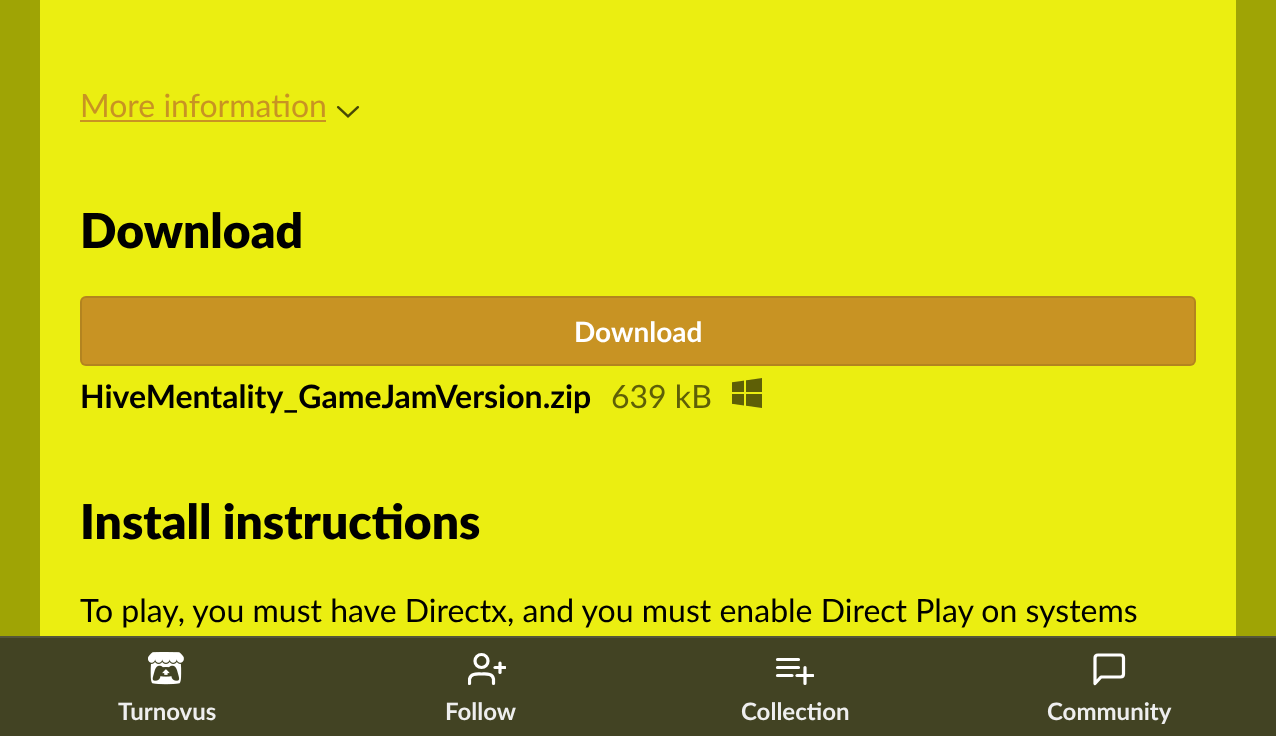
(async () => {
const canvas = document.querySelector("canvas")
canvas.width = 1276
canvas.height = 736
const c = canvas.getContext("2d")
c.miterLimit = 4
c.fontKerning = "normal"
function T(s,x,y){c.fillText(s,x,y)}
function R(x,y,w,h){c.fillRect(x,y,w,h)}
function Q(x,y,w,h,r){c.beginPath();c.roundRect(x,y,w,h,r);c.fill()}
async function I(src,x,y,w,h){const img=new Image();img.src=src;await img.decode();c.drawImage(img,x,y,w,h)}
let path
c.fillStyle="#9fa405"
R(0,0,1276,736)
c.fillStyle="#ebee11"
R(40,0,1196,636)
c.font="32px Lato"
c.fillStyle="#c89323"
T("More information",80,117)
R(80,120,246,2)
await I("1.png",336,106,24,12)
c.font="900 48px Lato"
c.fillStyle="#000"
T("Download",80,248)
c.fillStyle="#c89323"
Q(80,296,1116,70,6)
c.beginPath()
c.roundRect(81,297,1114,68,5)
c.strokeStyle="#0000001a"
c.lineWidth=2
c.stroke()
c.font="bold 28px Lato"
c.fillStyle="#fff"
T("Download",574,342)
c.font="bold 32px Lato"
c.fillStyle="#000"
T("HiveMentality_GameJamVersion.zip",80,408)
c.font="32px Lato"
c.fillStyle="#5e5f07"
T("639 kB",611,408)
await I("2.png",732,378,30,30)
c.font="900 48px Lato"
c.fillStyle="#000"
T("Install instructions",80,539)
c.font="32px Lato"
T("To play, you must have Directx, and you must enable Direct Play on systems",80,622)
c.fillStyle="#424323"
R(0,638,1276,98)
c.fillStyle="#555639"
R(0,636,1276,2)
await I("3.png",148,652,36,33)
c.font="bold 24px Lato"
c.fillStyle="#eee"
T("Turnovus",118,720)
c.save()
c.beginPath()
c.rect(468,650,38,38)
c.clip()
path = new Path2D("M493.5 683.5v-4.5c-1-6-7.5-5-12-5c-4.5 0-10.5-1-12 5v4.5")
c.strokeStyle="#fff"
c.lineWidth=3.2
c.lineCap="round"
c.lineJoin="round"
c.stroke(path)
c.restore()
c.beginPath()
c.arc(481.5,661,6.5,0,7)
c.strokeStyle="#fff"
c.lineWidth=3.2
c.stroke()
path = new Path2D("M500 663v9.5")
c.lineCap="round"
c.lineJoin="round"
c.stroke(path)
c.save()
c.beginPath()
c.rect(468,650,38,38)
c.clip()
path = new Path2D("M505 667.5h-10")
c.stroke(path)
c.restore()
T("Follow",445,720)
path = new Path2D("M777.5 659.5h21m-21 8h21m-21 8h14.5m13-8v16")
c.stroke(path)
c.save()
c.beginPath()
c.rect(776,650,38,38)
c.clip()
path = new Path2D("M797 675.5h16")
c.stroke(path)
c.restore()
T("Collection",741,720)
path = new Path2D("M1123.5 674c0 2-1.5 3-3 3h-19.5l-6 6.5v-25.5c0-2 1-3 3-3h22.5c1.5 0 3 1 3 3z")
c.stroke(path)
T("Community",1047,720)
})()
